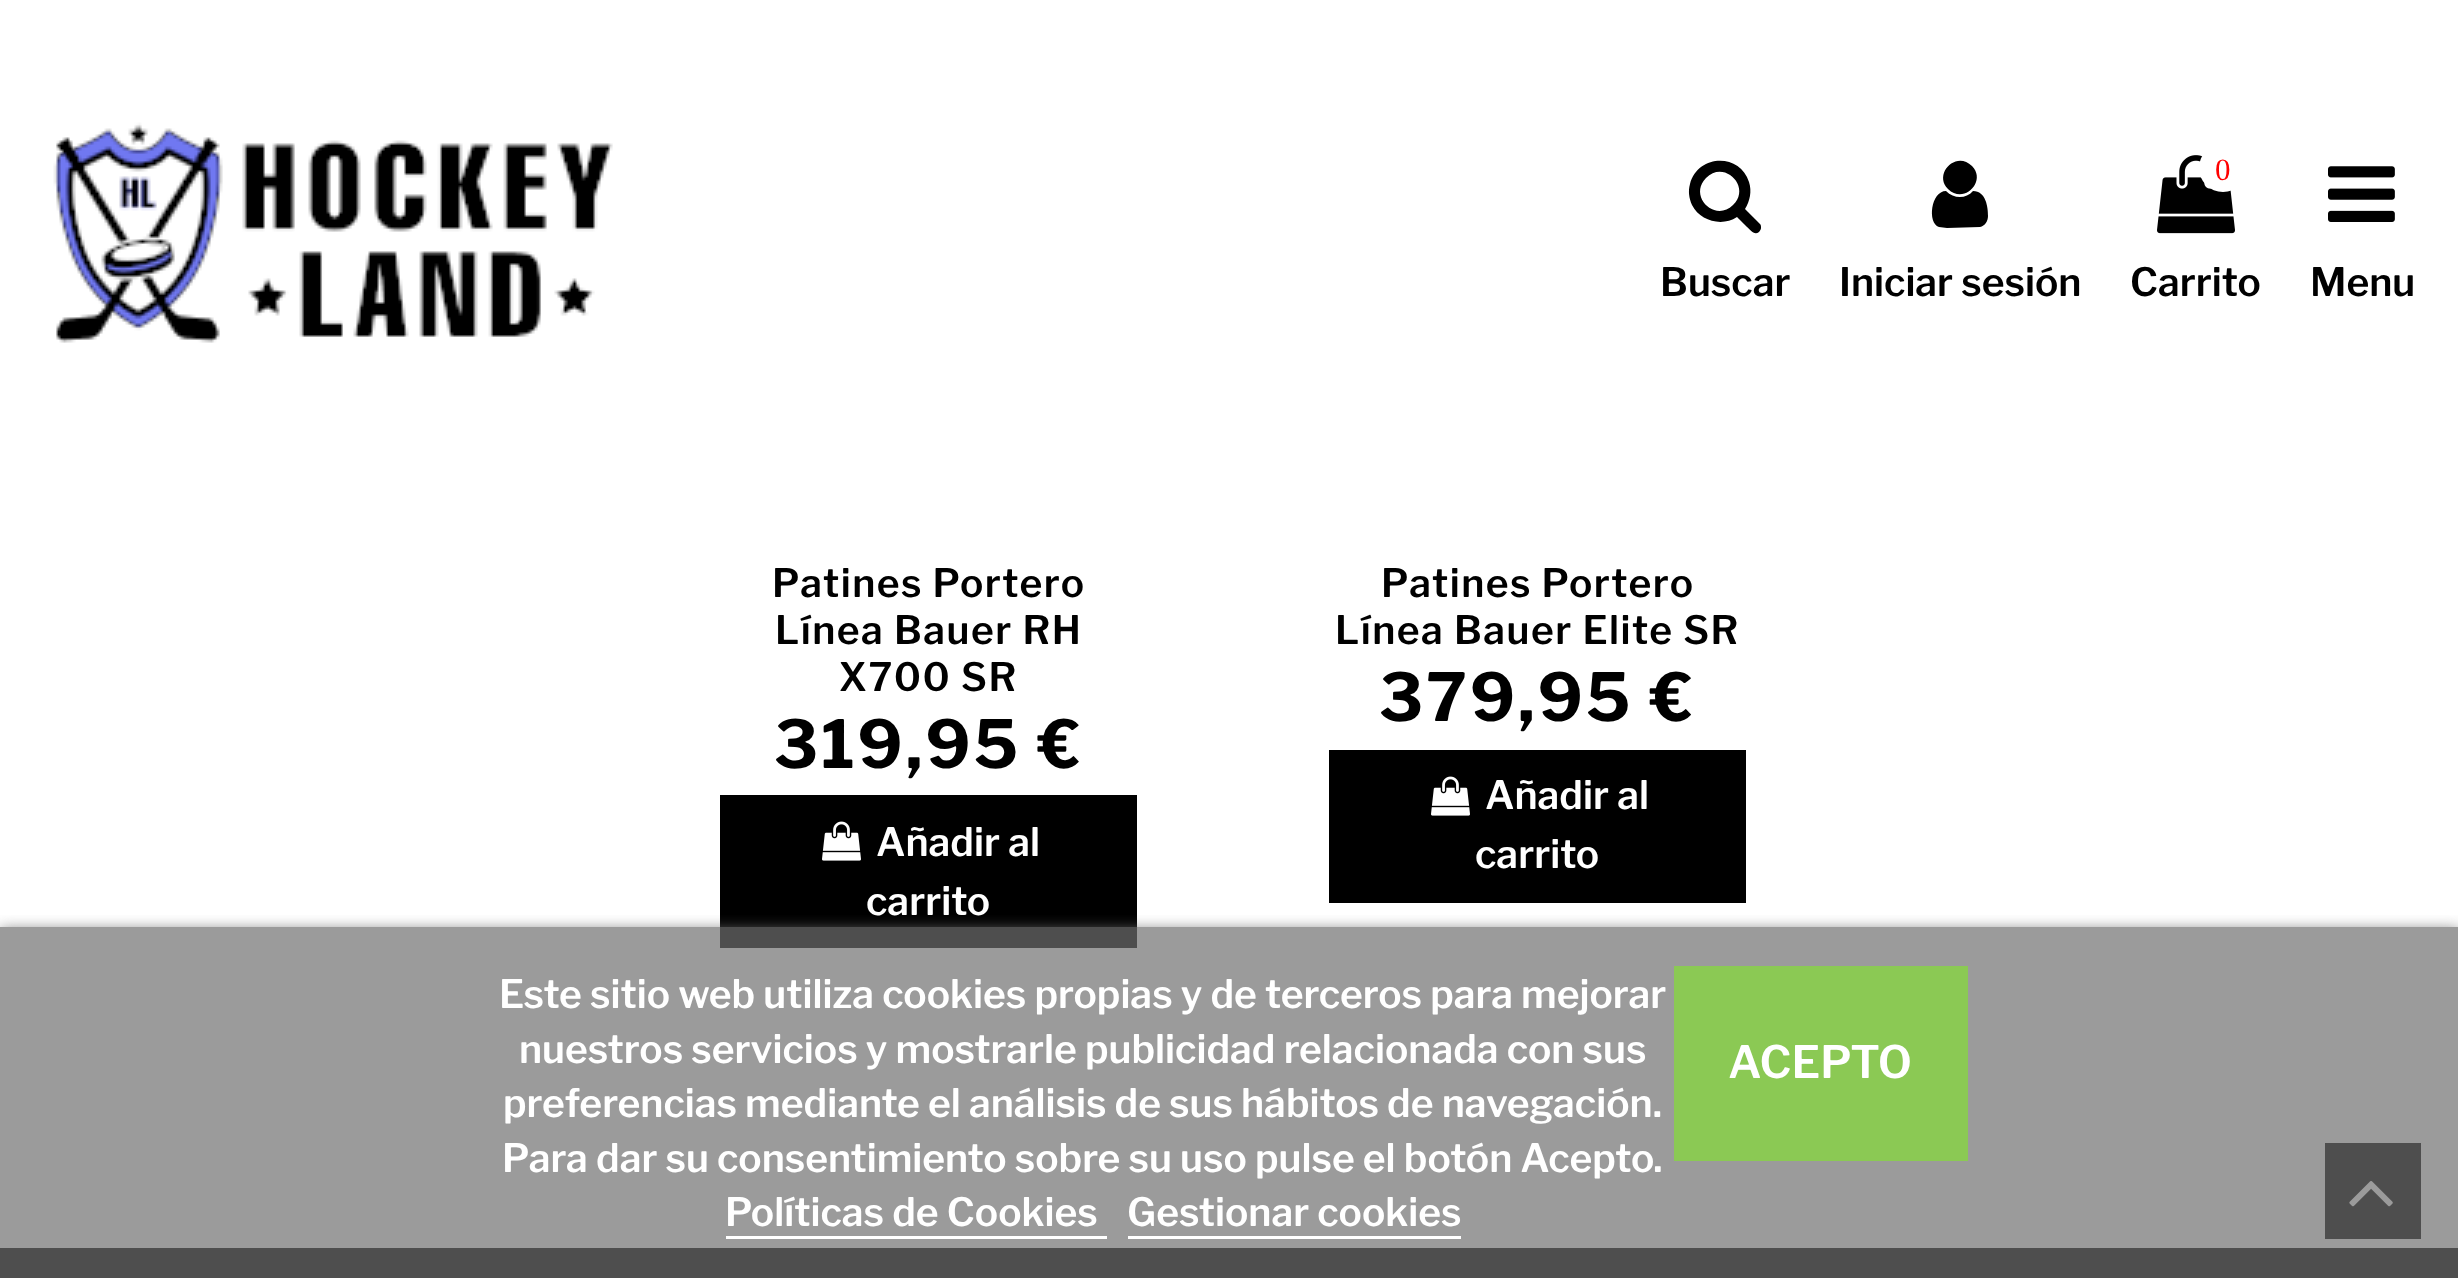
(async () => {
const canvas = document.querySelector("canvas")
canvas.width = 2458
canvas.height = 1278
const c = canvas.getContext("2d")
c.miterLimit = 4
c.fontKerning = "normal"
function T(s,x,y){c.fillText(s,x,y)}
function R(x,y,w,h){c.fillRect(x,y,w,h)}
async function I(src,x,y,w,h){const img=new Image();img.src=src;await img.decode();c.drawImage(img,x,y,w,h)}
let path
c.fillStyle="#fff"
R(0,0,2458,1278)
c.fillStyle="#9b9b9b"
R(0,927,2458,321)
await I("1.png",53,122,560,221)
c.fillStyle="#000"
path = new Path2D("M1733 205c19-18-9-46-27-27c-18 18 9 45 27 27zm28 23c0 1-1 3-2 4c-5 4-9-3-12-5l-10-10c-15 10-37 4-45-12c-3-7-4-14-2-21c8-30 50-31 59-2c3 9 1 19-4 27l15 15c1 1 1 2 1 4z")
c.fill(path)
c.font="600 39px Libre Franklin"
T("Buscar",1660,296)
path = new Path2D("M1988 216c0 5-3 10-8 11l-33 1l-8-1c-12-4-8-36 7-36c8 8 20 8 27 0c13 0 15 16 15 25zm-16-50c15 15-8 39-24 23c-15-15 8-39 24-23z")
c.fill(path)
T("Iniciar sesión",1839,296)
await I("2.png",2157,155,78,79)
c.fillStyle="#fff"
c.beginPath()
c.arc(2223,168,24,0,7)
c.fill()
c.font="31px Liberation Serif"
c.fillStyle="#f00"
T("0",2215,180)
c.font="600 39px Libre Franklin"
c.fillStyle="#000"
T("Carrito",2130,296)
await I("3.png",2328,166,67,56)
T("Menu",2310,296)
c.letterSpacing="1.5px"
T("Patines Portero",772,597)
T("Línea Bauer RH",775,644)
T("X700 SR",839,691)
c.letterSpacing="3px"
c.font="bold 66px Libre Franklin"
T("319,95 €",774,768)
R(720,795,417,132)
c.fillStyle="#4e4e4e"
R(720,927,417,21)
await I("4.png",822,821,39,40)
c.letterSpacing="0px"
c.font="600 39px Libre Franklin"
c.fillStyle="#fff"
T("Añadir al",876,856)
T("carrito",866,915)
c.letterSpacing="1.5px"
c.fillStyle="#000"
T("Patines Portero",1381,597)
T("Línea Bauer Elite SR",1335,644)
c.letterSpacing="3px"
c.font="bold 66px Libre Franklin"
T("379,95 €",1379,721)
R(1329,750,417,153)
await I("4.png",1431,776,39,40)
c.letterSpacing="0px"
c.font="600 39px Libre Franklin"
c.fillStyle="#fff"
T("Añadir al",1485,809)
T("carrito",1475,868)
c.fillStyle="#4e4e4e"
R(0,1248,2458,30)
R(2325,1143,96,96)
await I("5.png",2349,1181,44,26)
c.save()
c.beginPath()
c.rect(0,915,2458,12)
c.clip()
c.fillStyle="#707070"
c.filter="blur(7.5px)"
c.beginPath()
c.rect(0,930,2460,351)
c.fill()
c.filter="none"
c.restore()
c.fillStyle="#fff"
T("Este sitio web utiliza cookies propias y de terceros para mejorar",499,1008)
T("nuestros servicios y mostrarle publicidad relacionada con sus",519,1063)
T("preferencias mediante el análisis de sus hábitos de navegación.",503,1117)
T("Para dar su consentimiento sobre su uso pulse el botón Acepto.",502,1172)
T("Políticas de Cookies",725,1226)
R(726,1236,381,3)
T("Gestionar cookies",1127,1226)
R(1128,1236,333,3)
c.fillStyle="#8bc954"
R(1674,966,294,195)
c.font="600 44.5px Libre Franklin"
c.fillStyle="#fff"
T("ACEPTO",1728,1078)
})()
